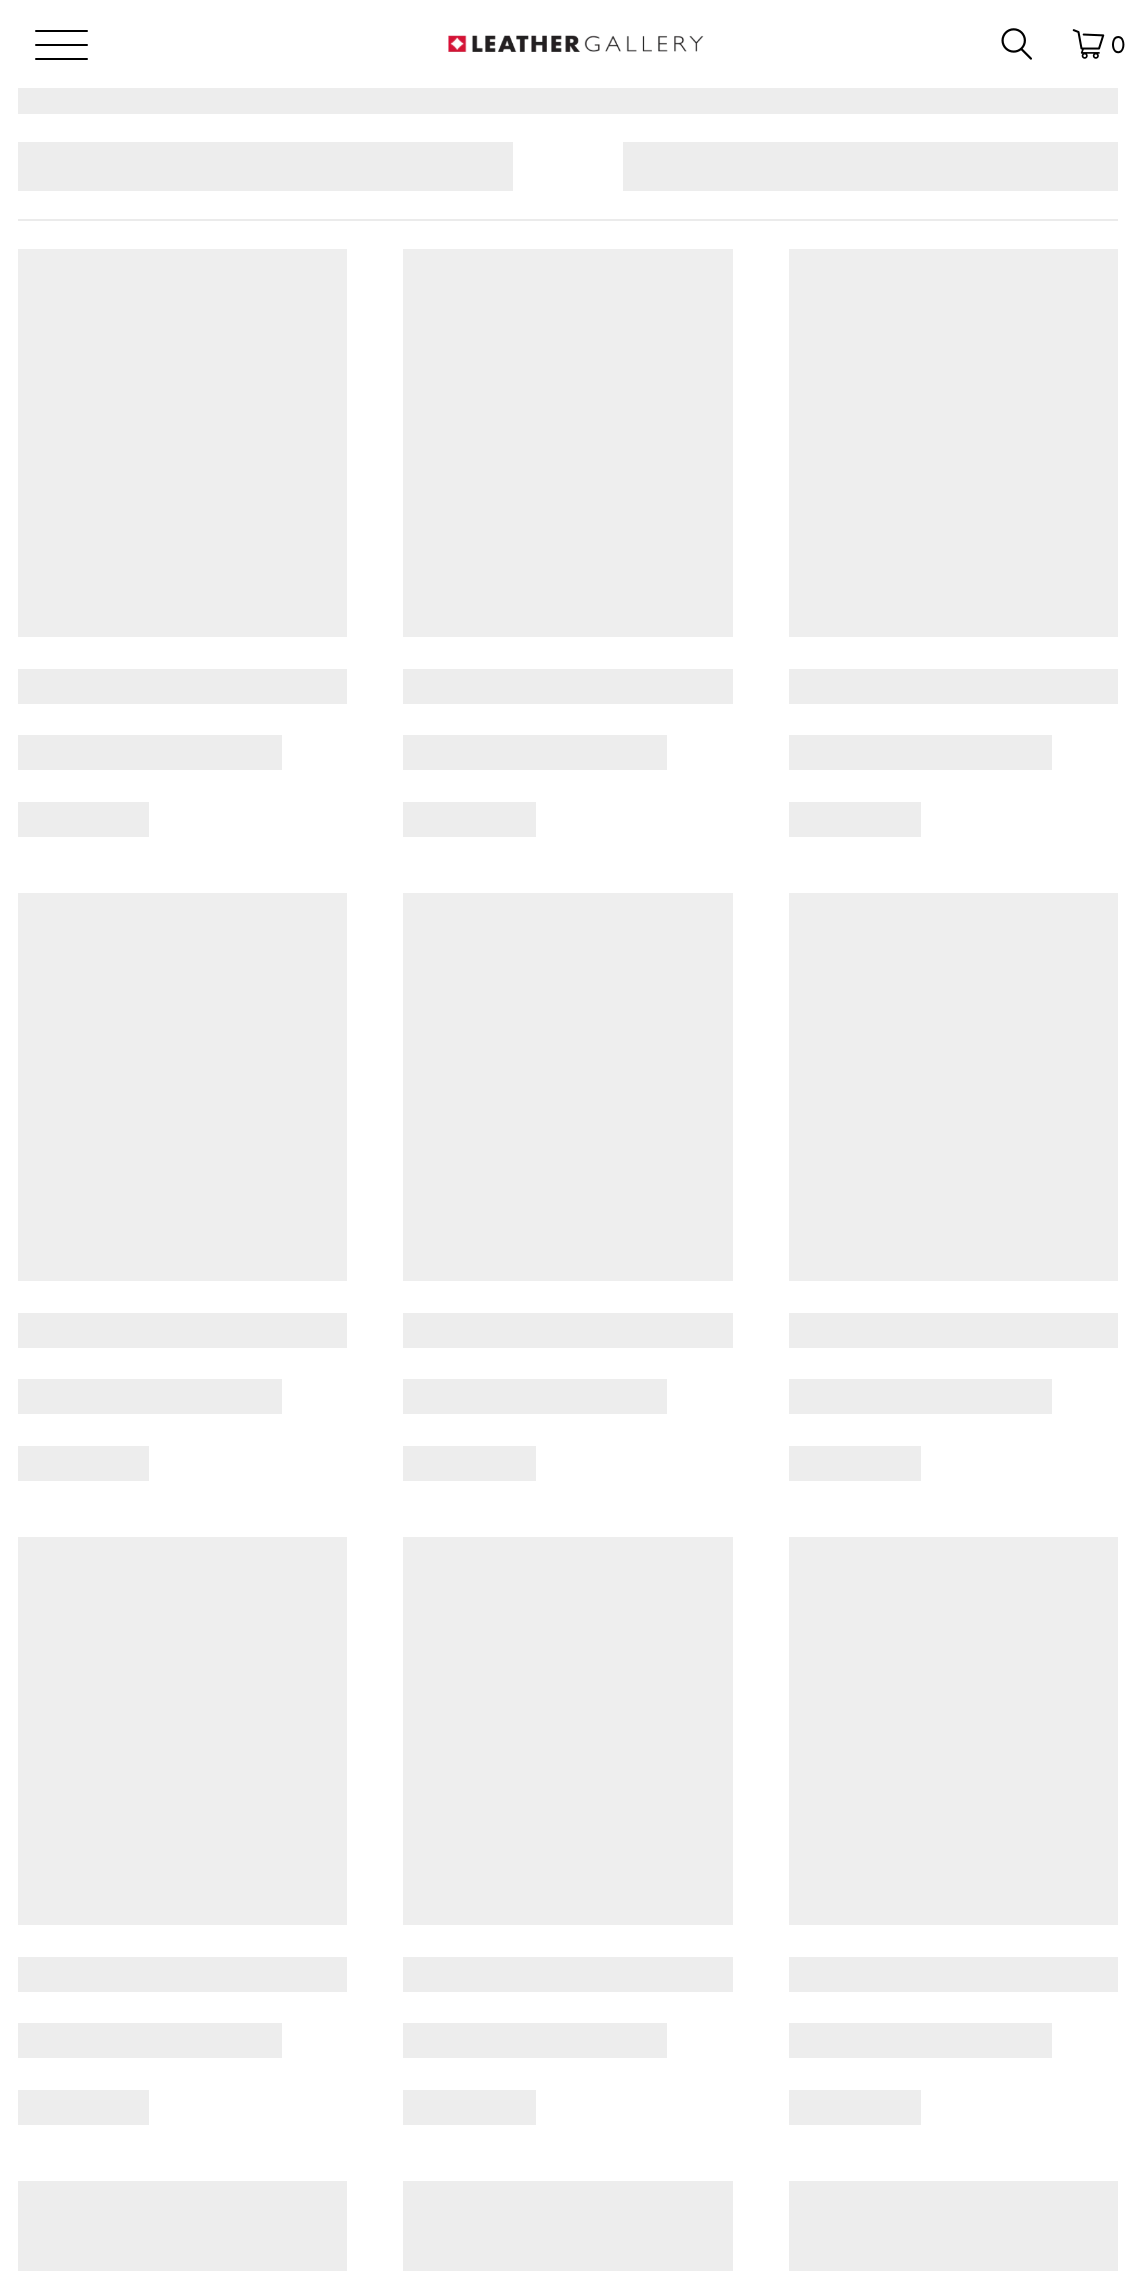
(async () => {
const canvas = document.querySelector("canvas")
canvas.width = 1135
canvas.height = 2271
const c = canvas.getContext("2d")
c.miterLimit = 4
c.fontKerning = "normal"
function T(s,x,y){c.fillText(s,x,y)}
function R(x,y,w,h){c.fillRect(x,y,w,h)}
function Q(x,y,w,h,r){c.beginPath();c.roundRect(x,y,w,h,r);c.fill()}
async function I(src,x,y,w,h){const img=new Image();img.src=src;await img.decode();c.drawImage(img,x,y,w,h)}
c.fillStyle="#fff"
R(0,0,1135,2271)
c.fillStyle="#000"
Q(35,30,53,2,1)
Q(35,44,53,2,1)
Q(35,58,53,2,1)
await I("1.png",448,35,256,17)
await I("2.png",1001,28,31,32)
await I("3.png",1072,29,33,30)
c.letterSpacing="2px"
c.font="24px Jost"
T("0",1111,53)
c.fillStyle="#ebebeb"
R(18,219,1100,2)
c.fillStyle="#ededed"
R(18,88,1100,26)
R(18,142,495,49)
R(623,142,495,49)
c.fillStyle="#eee"
R(18,249,329,388)
c.fillStyle="#ededed"
R(18,669,329,35)
R(18,735,264,35)
R(18,802,131,35)
c.fillStyle="#eee"
R(403,249,330,388)
c.fillStyle="#ededed"
R(403,669,330,35)
R(403,735,264,35)
R(403,802,133,35)
c.fillStyle="#eee"
R(789,249,329,388)
c.fillStyle="#ededed"
R(789,669,329,35)
R(789,735,263,35)
R(789,802,132,35)
c.fillStyle="#eee"
R(18,893,329,388)
c.fillStyle="#ededed"
R(18,1313,329,35)
R(18,1379,264,35)
R(18,1446,131,35)
c.fillStyle="#eee"
R(403,893,330,388)
c.fillStyle="#ededed"
R(403,1313,330,35)
R(403,1379,264,35)
R(403,1446,133,35)
c.fillStyle="#eee"
R(789,893,329,388)
c.fillStyle="#ededed"
R(789,1313,329,35)
R(789,1379,263,35)
R(789,1446,132,35)
c.fillStyle="#eee"
R(18,1537,329,388)
c.fillStyle="#ededed"
R(18,1957,329,35)
R(18,2023,264,35)
R(18,2090,131,35)
c.fillStyle="#eee"
R(403,1537,330,388)
c.fillStyle="#ededed"
R(403,1957,330,35)
R(403,2023,264,35)
R(403,2090,133,35)
c.fillStyle="#eee"
R(789,1537,329,388)
c.fillStyle="#ededed"
R(789,1957,329,35)
R(789,2023,263,35)
R(789,2090,132,35)
R(18,2181,329,90)
R(403,2181,330,90)
R(789,2181,329,90)
})()
